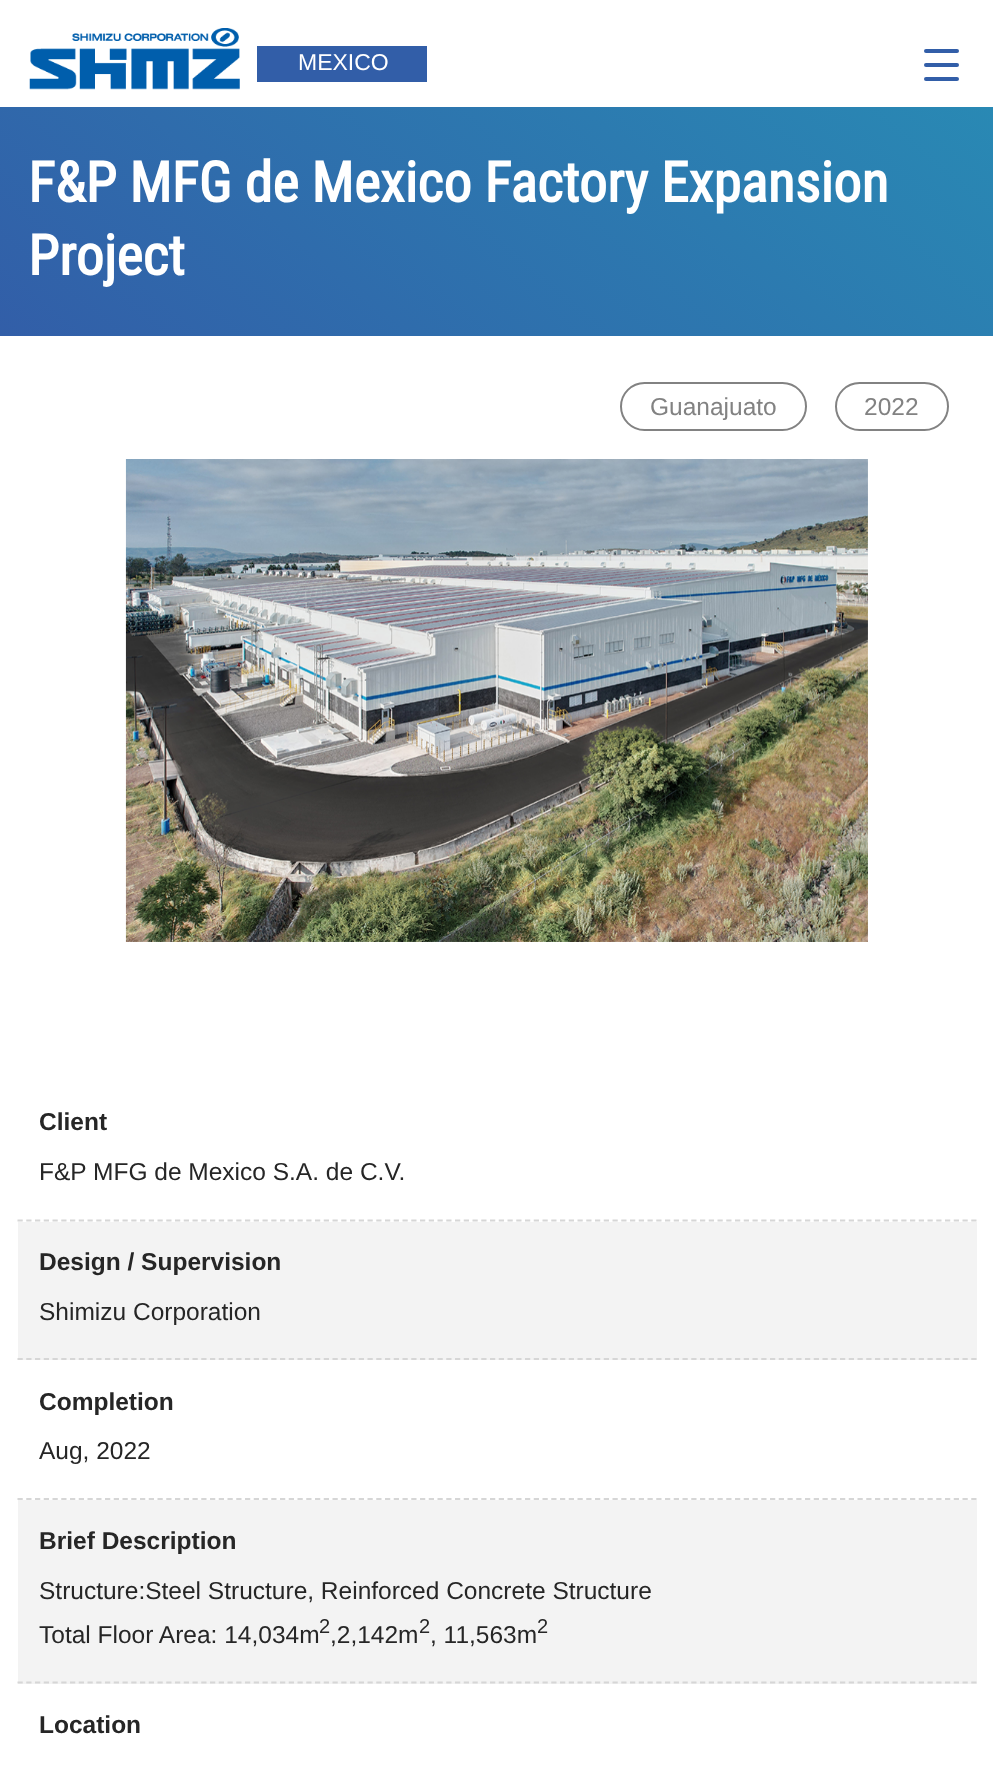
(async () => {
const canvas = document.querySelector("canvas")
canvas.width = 993
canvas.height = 1768
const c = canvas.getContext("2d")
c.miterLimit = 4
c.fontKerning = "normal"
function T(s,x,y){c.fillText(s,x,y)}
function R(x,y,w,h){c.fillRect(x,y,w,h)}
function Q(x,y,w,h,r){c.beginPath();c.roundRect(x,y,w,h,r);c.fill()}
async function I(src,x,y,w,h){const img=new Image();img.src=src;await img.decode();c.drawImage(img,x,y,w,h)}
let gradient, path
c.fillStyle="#fff"
R(0,0,993,1768)
await I("1.png",29,28,211,62)
c.fillStyle="#325ea8"
R(257,46,170,36)
c.font="23px Liberation Sans"
c.fillStyle="#fff"
T("MEXICO",298,70)
c.fillStyle="#325ea8"
Q(924,49,35,4,2)
Q(924,63,35,4,2)
Q(924,77,35,4,2)
gradient = c.createLinearGradient(759,-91,235,533)
gradient.addColorStop(0,"#2989b4")
gradient.addColorStop(1,"#325ea8")
c.fillStyle = gradient
R(0,107,993,229)
c.font="bold 56px Roboto Condensed"
c.fillStyle="#fff"
T("F&P MFG de Mexico Factory Expansion",28,202)
T("Project",28,275)
c.beginPath()
c.roundRect(621,383,185,47,23.5)
c.strokeStyle="#828282"
c.lineWidth=2
c.stroke()
c.font="24.5px Liberation Sans"
c.fillStyle="#828282"
T("Guanajuato",650,415)
c.beginPath()
c.roundRect(836,383,112,47,23.5)
c.stroke()
T("2022",864,415)
await I("2.png",125,459,743,483)
c.font="bold 24.5px Liberation Sans"
c.fillStyle="#262626"
T("Client",39,1130)
path = new Path2D("M17.5 1220.5h959")
c.strokeStyle="#d6d6d6"
c.lineWidth=1.8
c.setLineDash([5.25,3.5])
c.stroke(path)
c.font="24.5px Liberation Sans"
T("F&P MFG de Mexico S.A. de C.V.",39,1180)
c.fillStyle="#f3f3f3"
R(18,1222,959,138)
c.font="bold 24.5px Liberation Sans"
c.fillStyle="#262626"
T("Design / Supervision",39,1270)
path = new Path2D("M17.5 1359h959")
c.stroke(path)
c.font="24.5px Liberation Sans"
T("Shimizu Corporation",39,1320)
c.font="bold 24.5px Liberation Sans"
T("Completion",39,1410)
path = new Path2D("M17.5 1499h959")
c.stroke(path)
c.font="24.5px Liberation Sans"
T("Aug, 2022",39,1459)
c.fillStyle="#f3f3f3"
R(18,1500,959,184)
c.font="bold 24.5px Liberation Sans"
c.fillStyle="#262626"
T("Brief Description",39,1549)
path = new Path2D("M17.5 1682.5h959")
c.stroke(path)
c.font="24.5px Liberation Sans"
T("Structure:Steel Structure, Reinforced Concrete Structure",39,1599)
T("Total Floor Area: 14,034m",39,1643)
c.font="20px Liberation Sans"
T("2",319,1633)
c.font="24.5px Liberation Sans"
T(",2,142m",330,1643)
c.font="20px Liberation Sans"
T("2",419,1633)
c.font="24.5px Liberation Sans"
T(", 11,563m",430,1643)
c.font="20px Liberation Sans"
T("2",537,1633)
c.font="bold 24.5px Liberation Sans"
T("Location",39,1733)
})()
